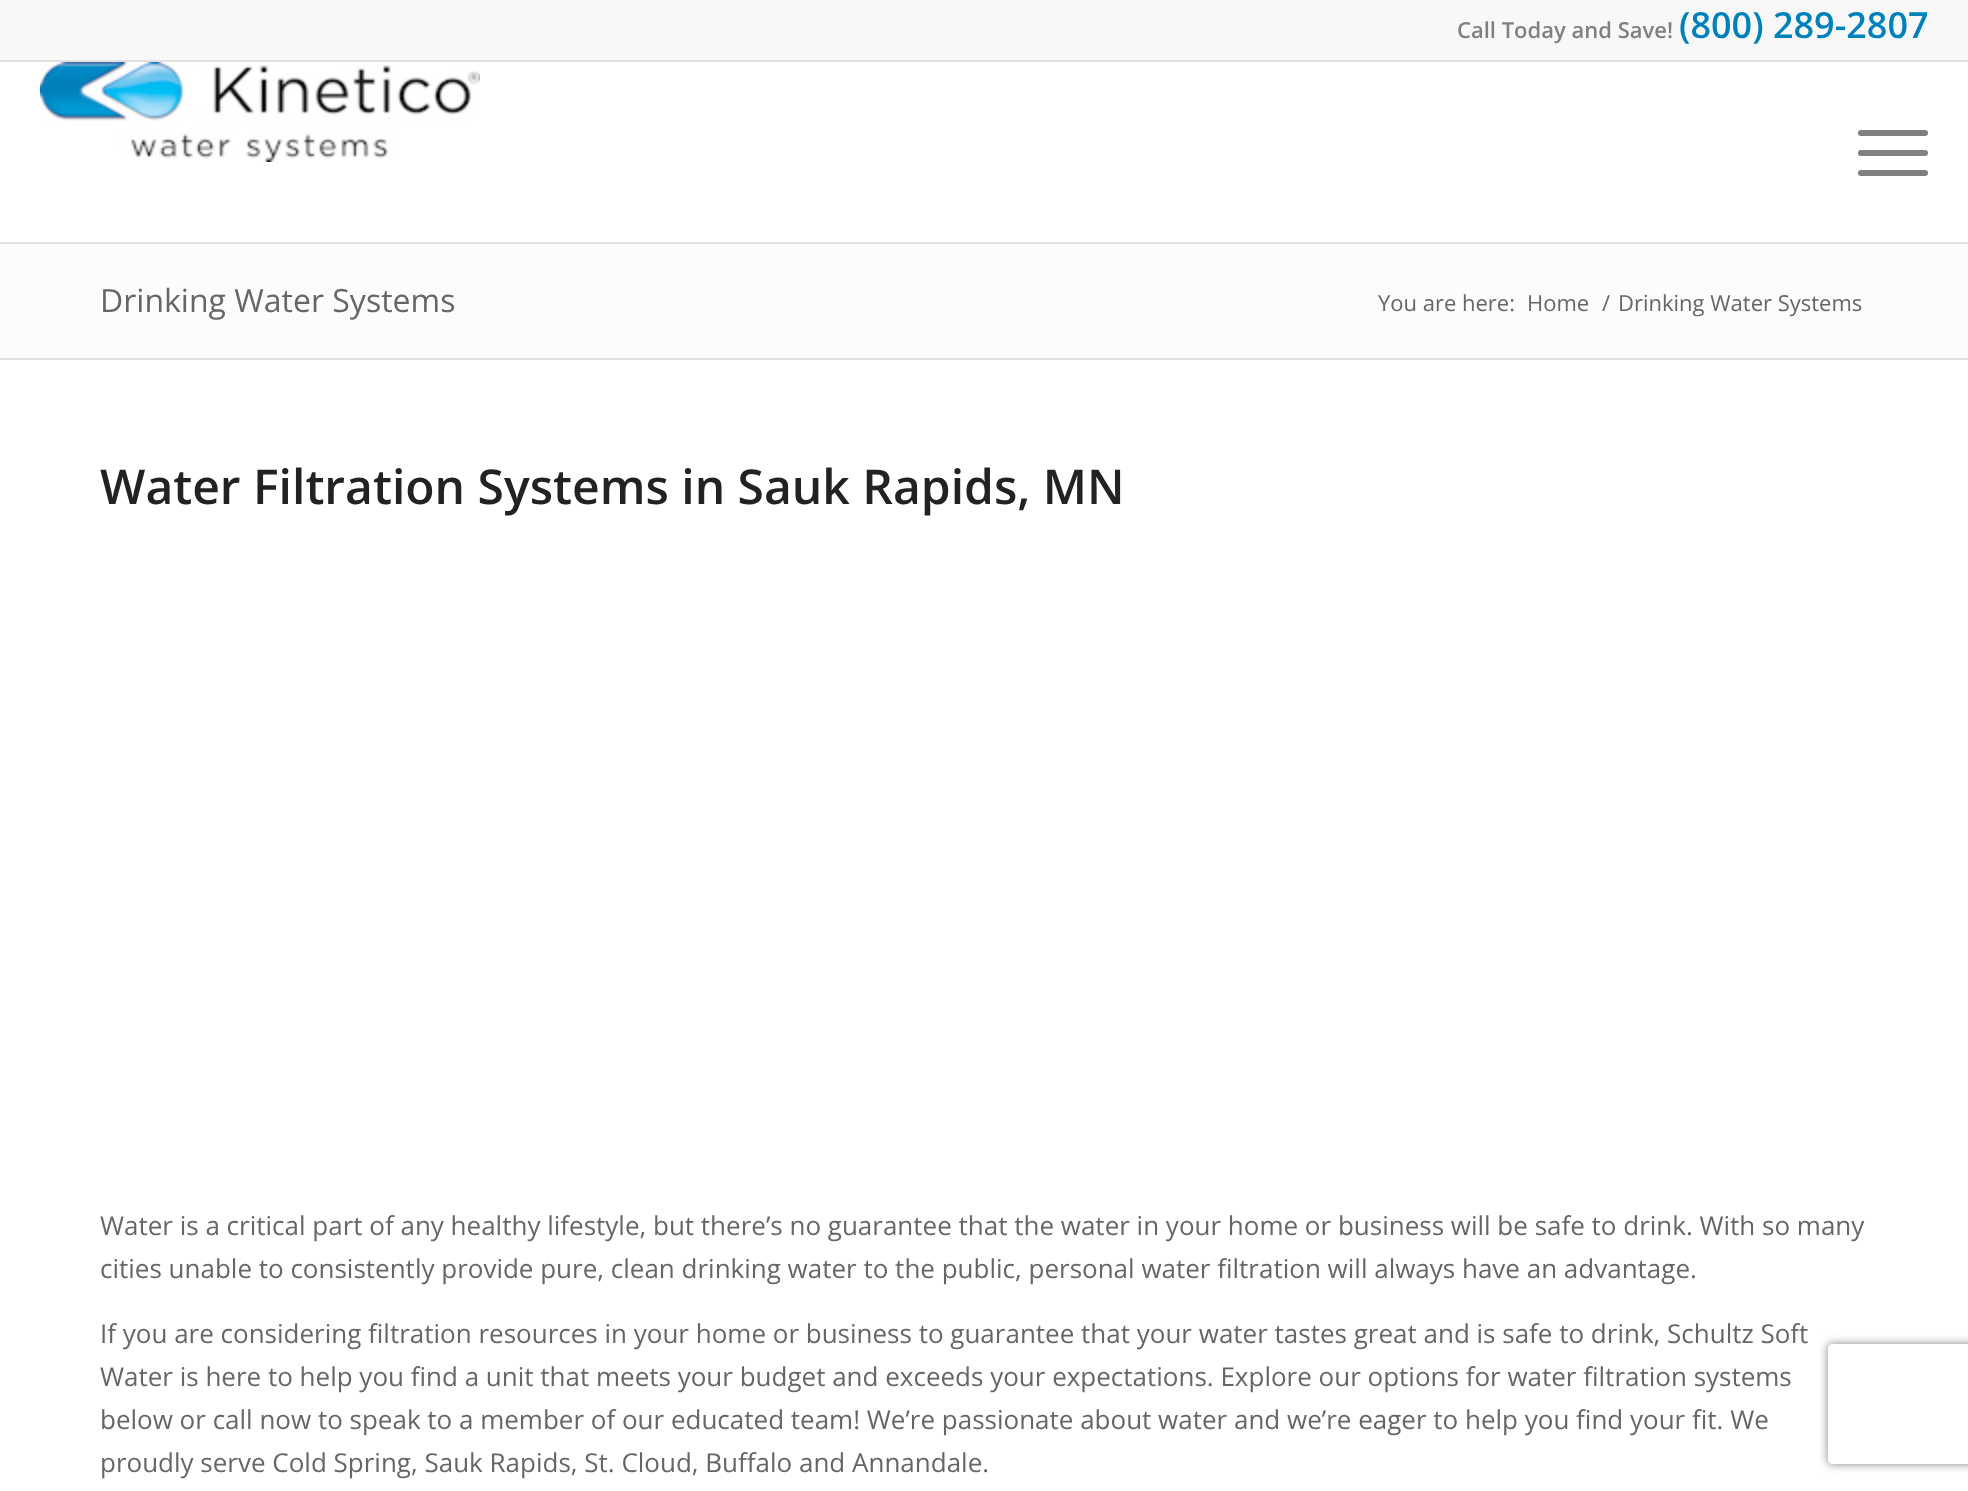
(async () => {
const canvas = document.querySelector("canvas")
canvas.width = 1968
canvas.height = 1491
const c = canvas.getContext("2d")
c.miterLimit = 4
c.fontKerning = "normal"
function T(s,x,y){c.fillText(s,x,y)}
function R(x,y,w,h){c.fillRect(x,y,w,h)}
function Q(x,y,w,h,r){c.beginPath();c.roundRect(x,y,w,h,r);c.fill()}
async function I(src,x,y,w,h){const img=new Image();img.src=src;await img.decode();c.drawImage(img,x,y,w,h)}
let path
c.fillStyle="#fff"
R(0,0,1968,1491)
c.fillStyle="#f8f8f8"
R(0,0,1968,60)
c.fillStyle="#e1e1e1"
R(0,60,1968,2)
c.font="600 22px Open Sans"
c.fillStyle="#808080"
T("Call Today and Save!",1457,38)
c.font="600 36px Open Sans"
c.fillStyle="#0081bb"
T("(800) 289-2807",1679,38)
c.fillStyle="#e1e1e1"
R(0,242,1968,2)
await I("1.png",40,62,440,100)
c.fillStyle="#808080"
Q(1858,150,70,6,3)
Q(1858,130,70,6,3)
Q(1858,170,70,6,3)
c.fillStyle="#fcfcfc"
R(0,244,1968,114)
c.font="32px Open Sans"
c.fillStyle="#666"
T("Drinking Water Systems",100,312)
c.font="22px Open Sans"
T("You are here:",1378,311)
T("Home",1527,311)
T("/",1602,311)
T("Drinking Water Systems",1618,311)
c.fillStyle="#e1e1e1"
R(0,358,1968,2)
c.font="600 48px Open Sans"
c.fillStyle="#222"
T("Water Filtration Systems in Sauk Rapids, MN",100,504)
c.font="26px Open Sans"
c.fillStyle="#666"
T("Water is a critical part of any healthy lifestyle, but there’s no guarantee that the water in your home or business will be safe to drink. With so many",100,1235)
T("cities unable to consistently provide pure, clean drinking water to the public, personal water filtration will always have an advantage.",100,1278)
T("If you are considering filtration resources in your home or business to guarantee that your water tastes great and is safe to drink, Schultz Soft",100,1343)
T("Water is here to help you find a unit that meets your budget and exceeds your expectations. Explore our options for water filtration systems",100,1386)
T("below or call now to speak to a member of our educated team! We’re passionate about water and we’re eager to help you find your fit. We",100,1429)
T("proudly serve Cold Spring, Sauk Rapids, St. Cloud, Buffalo and Annandale.",100,1472)
c.save()
path = new Path2D("M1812 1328h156v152h-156zm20 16h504c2 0 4 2 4 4v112c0 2-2 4-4 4h-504c-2 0-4-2-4-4v-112c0-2 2-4 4-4z")
c.clip(path,"evenodd")
c.fillStyle="#808080"
c.filter="blur(5px)"
c.beginPath()
c.roundRect(1828,1344,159,120,4)
c.fill()
c.filter="none"
c.restore()
})()
